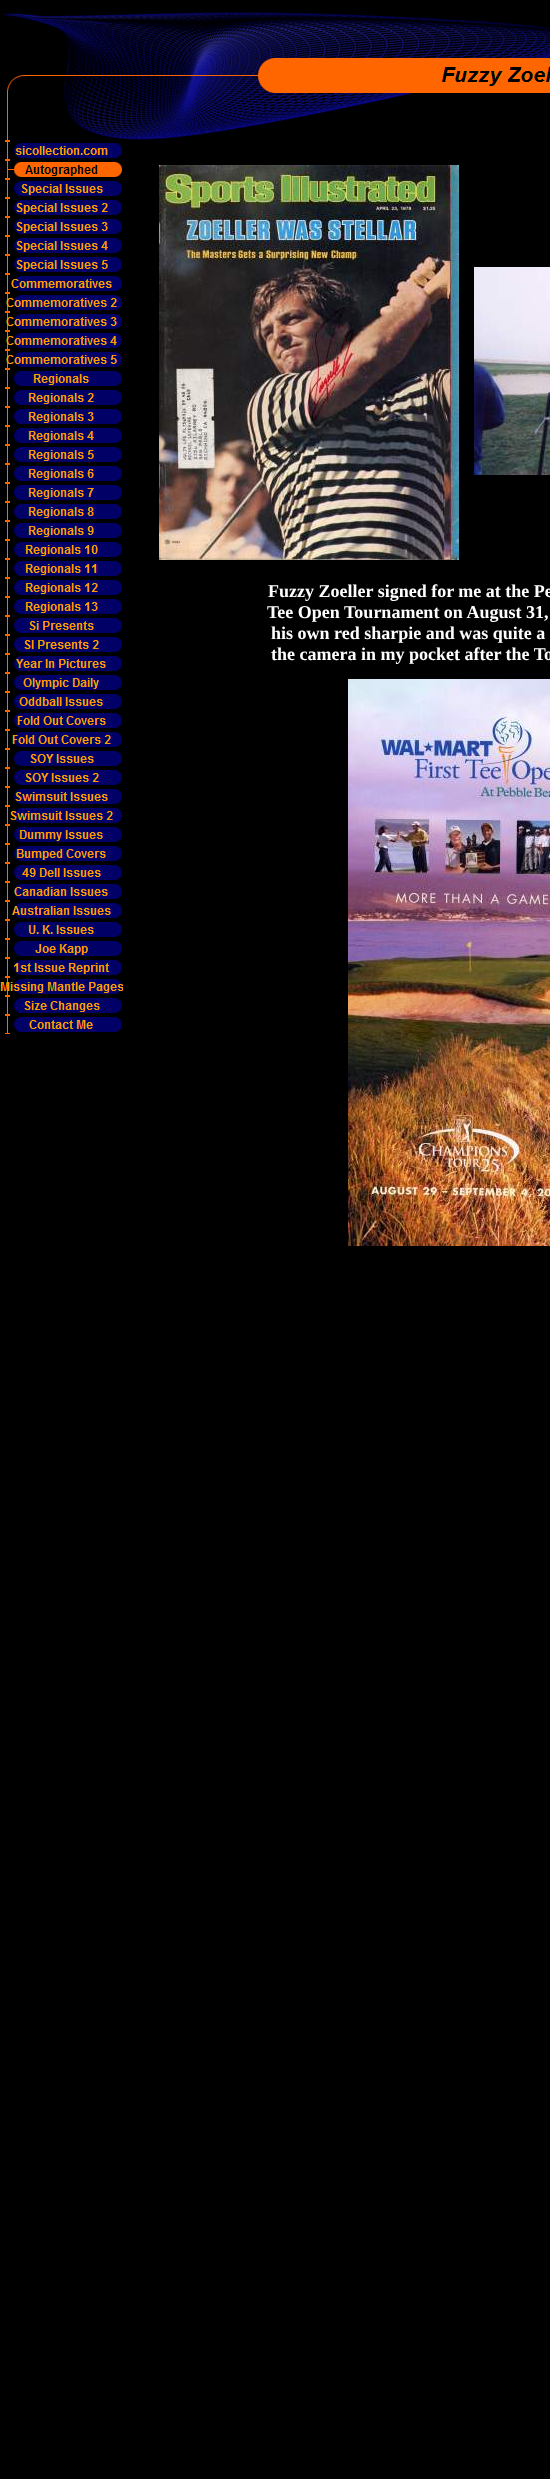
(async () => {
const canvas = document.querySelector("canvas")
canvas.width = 550
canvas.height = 2479
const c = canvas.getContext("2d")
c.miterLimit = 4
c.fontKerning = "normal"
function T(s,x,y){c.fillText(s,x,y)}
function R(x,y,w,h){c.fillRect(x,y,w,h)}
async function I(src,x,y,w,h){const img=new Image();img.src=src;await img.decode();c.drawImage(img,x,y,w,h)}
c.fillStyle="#000"
R(0,0,550,2479)
await I("1.png",4,12,546,129)
await I("2.png",5,141,117,19)
await I("3.png",5,160,117,19)
await I("4.png",5,179,117,19)
await I("5.png",5,198,117,19)
await I("6.png",5,217,117,19)
await I("7.png",5,236,117,19)
await I("8.png",5,255,117,19)
await I("9.png",5,274,117,19)
await I("10.png",5,293,117,19)
await I("11.png",5,312,117,19)
await I("12.png",5,331,117,19)
await I("13.png",5,350,117,19)
await I("14.png",5,369,117,19)
await I("15.png",5,388,117,19)
await I("16.png",5,407,117,19)
await I("17.png",5,426,117,19)
await I("18.png",5,445,117,19)
await I("19.png",5,464,117,19)
await I("20.png",5,483,117,19)
await I("21.png",5,502,117,19)
await I("22.png",5,521,117,19)
await I("23.png",5,540,117,19)
await I("24.png",5,559,117,19)
await I("25.png",5,578,117,19)
await I("26.png",5,597,117,19)
await I("27.png",5,616,117,19)
await I("28.png",5,635,117,19)
await I("29.png",5,654,117,19)
await I("30.png",5,673,117,19)
await I("31.png",5,692,117,19)
await I("32.png",5,711,117,19)
await I("33.png",5,730,117,19)
await I("34.png",5,749,117,19)
await I("35.png",5,768,117,19)
await I("36.png",5,787,117,19)
await I("37.png",5,806,117,19)
await I("38.png",5,825,117,19)
await I("39.png",5,844,117,19)
await I("40.png",5,863,117,19)
await I("41.png",5,882,117,19)
await I("42.png",5,901,117,19)
await I("43.png",5,920,117,19)
await I("44.png",5,939,117,19)
await I("45.png",5,958,117,19)
await I("46.png",0,977,123,19)
await I("47.png",5,996,117,19)
await I("48.png",5,1015,117,19)
await I("49.png",159,165,300,395)
await I("50.png",474,267,76,208)
c.font="bold 18px Liberation Serif"
c.fillStyle="#fff"
T("Fuzzy Zoeller signed for me at the Pe",268,597)
T("Tee Open Tournament on August 31,",267,618)
T("his own red sharpie and was quite a",271,639)
T("the camera in my pocket after the To",271,660)
await I("51.png",348,679,202,567)
})()
